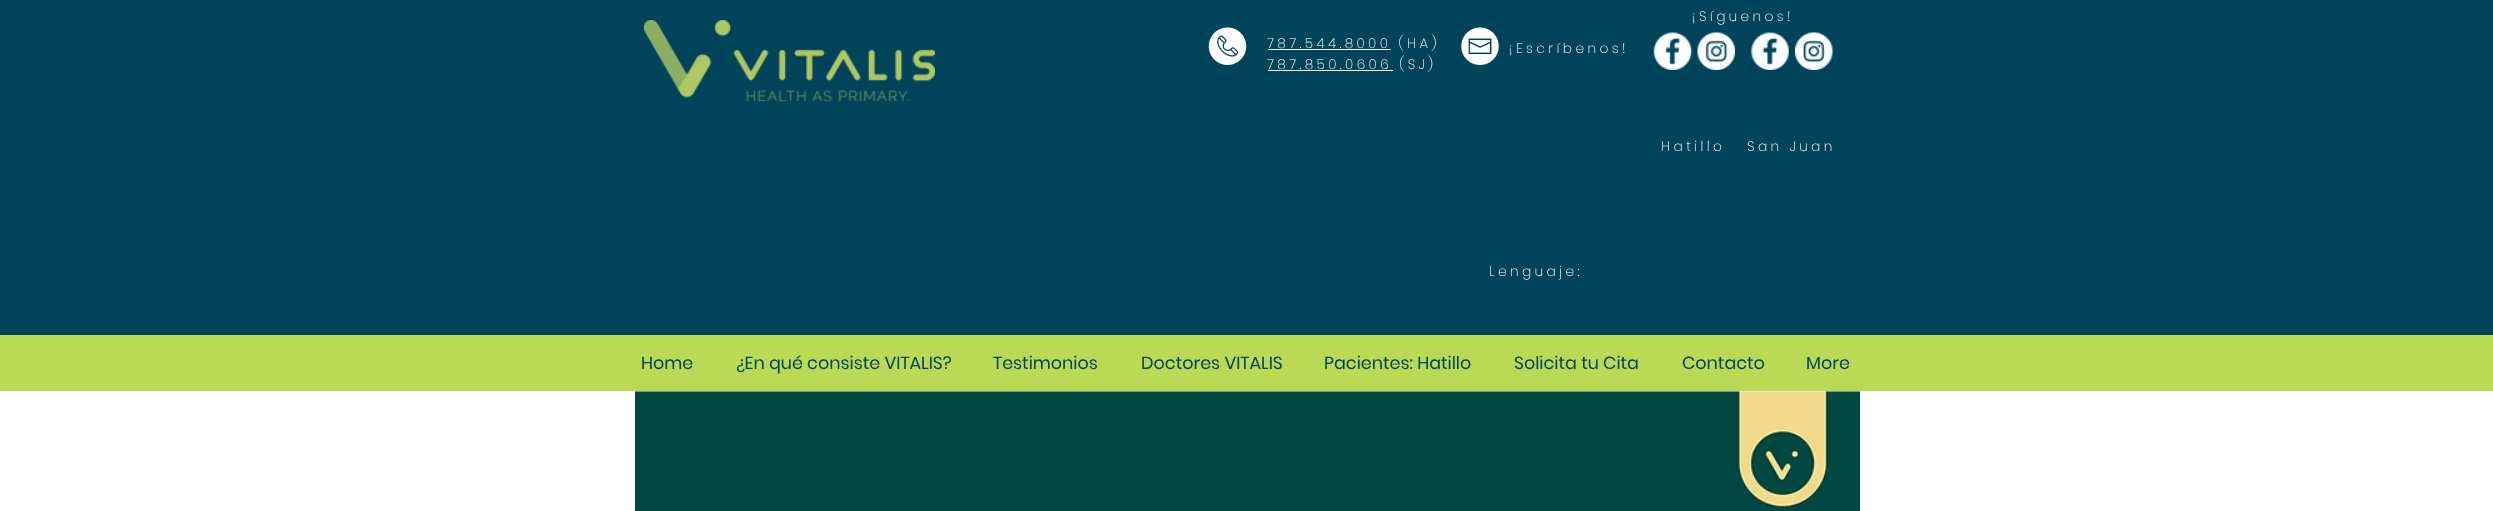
(async () => {
const canvas = document.querySelector("canvas")
canvas.width = 2493
canvas.height = 511
const c = canvas.getContext("2d")
c.miterLimit = 4
c.fontKerning = "normal"
function T(s,x,y){c.fillText(s,x,y)}
function R(x,y,w,h){c.fillRect(x,y,w,h)}
async function I(src,x,y,w,h){const img=new Image();img.src=src;await img.decode();c.drawImage(img,x,y,w,h)}
c.fillStyle="#fff"
R(0,0,2493,511)
c.fillStyle="#00445c"
R(0,0,2493,335)
c.letterSpacing="3.4px"
c.font="200 13.75px Poppins"
c.fillStyle="#fff"
T("¡Síguenos!",1692,21)
await I("1.png",643,20,292,82)
await I("2.png",1208,27,39,38)
R(1268,49,123,1)
T("787.544.8000 (HA)",1267,48)
R(1268,70,125,1)
T("787.850.0606 (SJ)",1267,69)
await I("3.png",1461,27,38,38)
T("¡Escríbenos!",1509,53)
await I("4.png",1653,32,39,38)
await I("5.png",1697,32,38,38)
await I("6.png",1751,32,38,38)
await I("7.png",1795,32,38,38)
T("Hatillo",1661,151)
T("San Juan",1747,151)
T("Lenguaje:",1489,276)
c.fillStyle="#bada55"
R(0,335,2493,56)
c.letterSpacing="0px"
c.font="17.5px Poppins"
c.fillStyle="#00445c"
T("Home",641,369)
T("¿En qué consiste VITALIS?",736,369)
T("Testimonios",993,369)
T("Doctores VITALIS",1141,369)
T("Pacientes: Hatillo",1324,369)
T("Solicita tu Cita",1514,369)
T("Contacto",1682,369)
T("More",1806,369)
await I("8.png",635,391,1225,120)
})()
